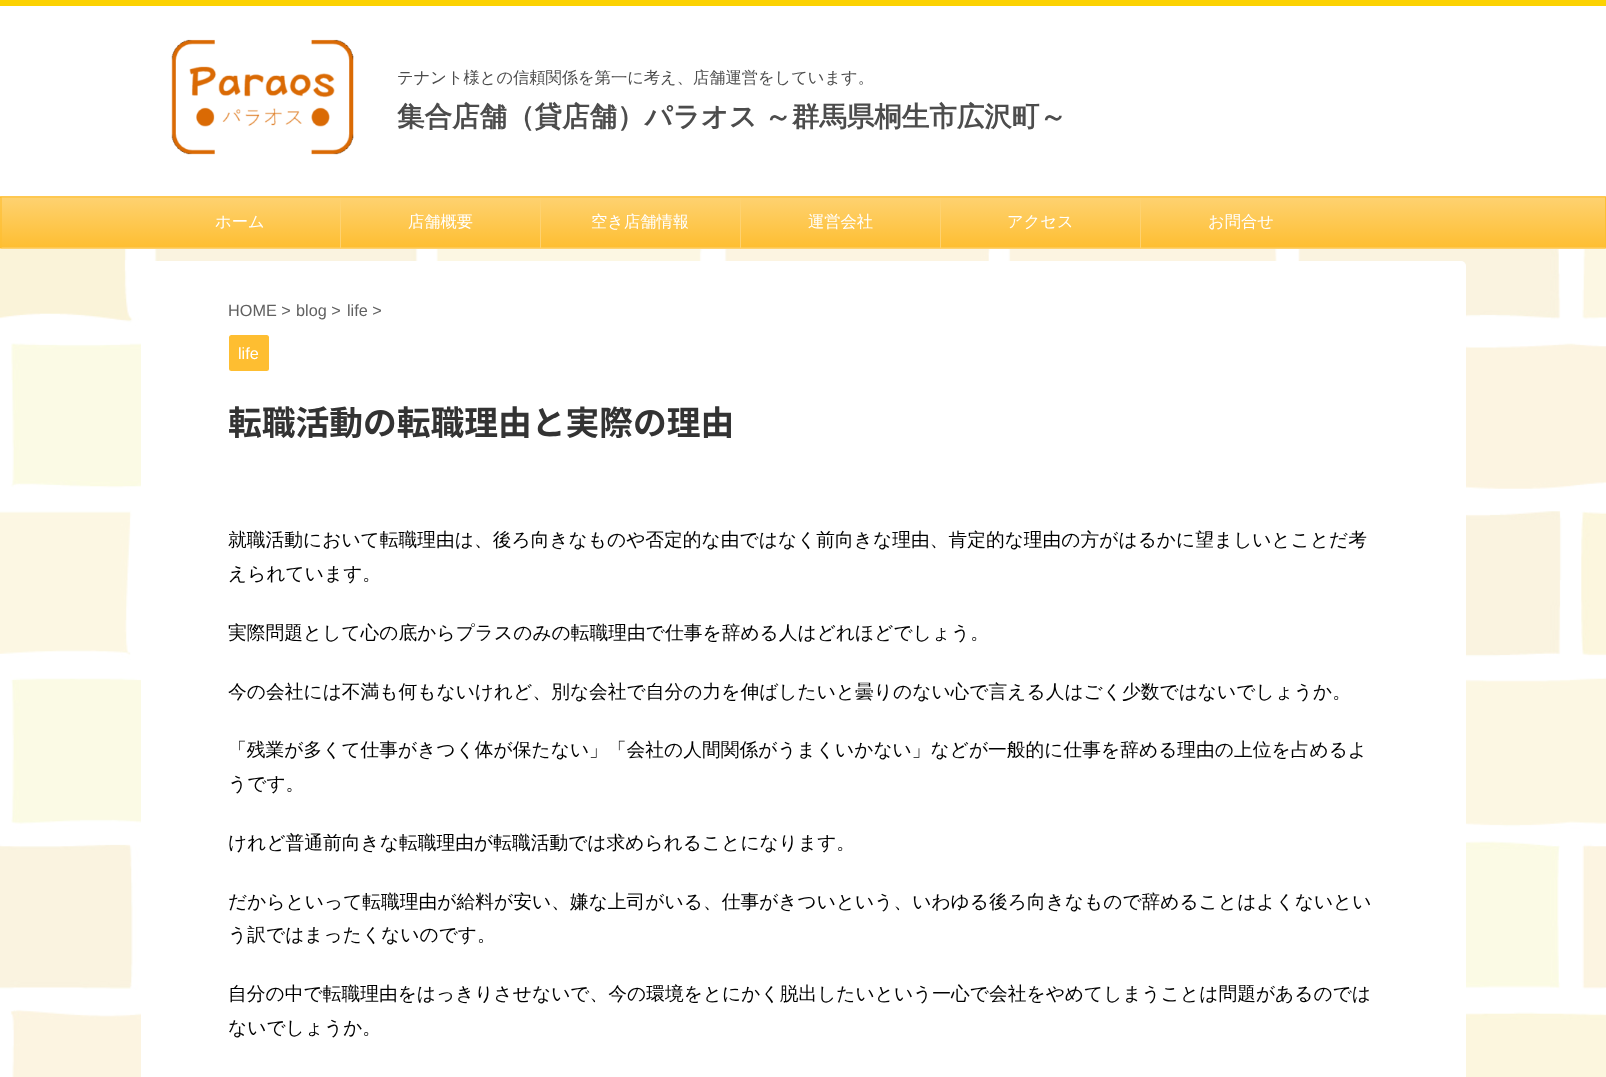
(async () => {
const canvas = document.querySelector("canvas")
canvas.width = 1606
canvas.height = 1077
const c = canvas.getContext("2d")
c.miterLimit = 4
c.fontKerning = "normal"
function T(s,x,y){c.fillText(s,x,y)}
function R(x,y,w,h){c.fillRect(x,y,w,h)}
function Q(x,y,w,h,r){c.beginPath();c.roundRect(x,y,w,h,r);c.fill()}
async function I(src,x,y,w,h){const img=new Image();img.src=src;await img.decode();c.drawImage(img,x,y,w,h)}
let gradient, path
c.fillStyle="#fff"
R(0,0,1606,1077)
await I("1.png",0,196,1606,881)
c.fillStyle="#fcd202"
R(0,0,1606,6)
await I("2.png",171,39,183,116)
c.font="500 16.25px WenQuanYi Zen Hei"
c.fillStyle="#4c4c4c"
T("テナント様との信頼関係を第一に考え、店舗運営をしています。",397,83)
c.wordSpacing="-1px"
c.font="bold 27.5px WenQuanYi Zen Hei"
T("集合店舗（貸店舗）パラオス ～群馬県桐生市広沢町～",397,126)
gradient = c.createLinearGradient(803,147,803,198)
gradient.addColorStop(0,"#fed271")
gradient.addColorStop(1,"#febe31")
c.fillStyle = gradient
c.beginPath()
c.roundRect(0,196,1606,2,[1,1,0,0])
c.fill()
gradient = c.createLinearGradient(803,197,803,248)
gradient.addColorStop(0,"#fed271")
gradient.addColorStop(1,"#febe31")
c.fillStyle = gradient
R(0,198,1605,50)
gradient = c.createLinearGradient(803,247,803,298)
gradient.addColorStop(0,"#fed271")
gradient.addColorStop(1,"#febe31")
c.fillStyle = gradient
c.beginPath()
c.roundRect(0,248,1606,1,[0,0,1,1])
c.fill()
path = new Path2D("M1 197h1604.5")
c.strokeStyle="#fed271"
c.lineWidth=1.2
c.stroke(path)
c.fillStyle="#febe31"
R(1605,197,1,51)
path = new Path2D("M1605.5 248h-1604.5")
c.stroke(path)
path = new Path2D("M1 248v-51")
c.strokeStyle="#febe31"
c.stroke(path)
c.fillStyle="#fed271"
R(340,198,1,50)
c.wordSpacing="0px"
c.font="500 16.25px WenQuanYi Zen Hei"
c.fillStyle="#fff"
T("ホーム",215,227)
c.fillStyle="#fed271"
R(540,198,1,50)
c.fillStyle="#fff"
T("店舗概要",408,227)
c.fillStyle="#fed271"
R(740,198,1,50)
c.fillStyle="#fff"
T("空き店舗情報",591,227)
c.fillStyle="#fed271"
R(940,198,1,50)
c.fillStyle="#fff"
T("運営会社",808,227)
c.fillStyle="#fed271"
R(1140,198,1,50)
c.fillStyle="#fff"
T("アクセス",1007,227)
T("お問合せ",1208,227)
Q(141,261,1325,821,5)
c.font="16.25px Liberation Sans"
c.fillStyle="#616161"
T("HOME >",228,316)
T("blog >",296,316)
T("life >",347,316)
c.fillStyle="#febe31"
Q(229,335,40,36,2.5)
c.fillStyle="#fff"
T("life",238,359)
c.font="bold 33.75px Noto Sans JP"
c.fillStyle="#333"
T("転職活動の転職理由と実際の理由",228,435)
c.font="500 18.75px WenQuanYi Zen Hei"
c.fillStyle="#000"
T("就職活動において転職理由は、後ろ向きなものや否定的な由ではなく前向きな理由、肯定的な理由の方がはるかに望ましいとことだ考",228,546)
T("えられています。",228,580)
T("実際問題として心の底からプラスのみの転職理由で仕事を辞める人はどれほどでしょう。",228,639)
T("今の会社には不満も何もないけれど、別な会社で自分の力を伸ばしたいと曇りのない心で言える人はごく少数ではないでしょうか。",228,698)
T("「残業が多くて仕事がきつく体が保たない」「会社の人間関係がうまくいかない」などが一般的に仕事を辞める理由の上位を占めるよ",228,756)
T("うです。",228,790)
T("けれど普通前向きな転職理由が転職活動では求められることになります。",228,849)
T("だからといって転職理由が給料が安い、嫌な上司がいる、仕事がきついという、いわゆる後ろ向きなもので辞めることはよくないとい",228,908)
T("う訳ではまったくないのです。",228,941)
T("自分の中で転職理由をはっきりさせないで、今の環境をとにかく脱出したいという一心で会社をやめてしまうことは問題があるのでは",228,1000)
T("ないでしょうか。",228,1034)
})()
